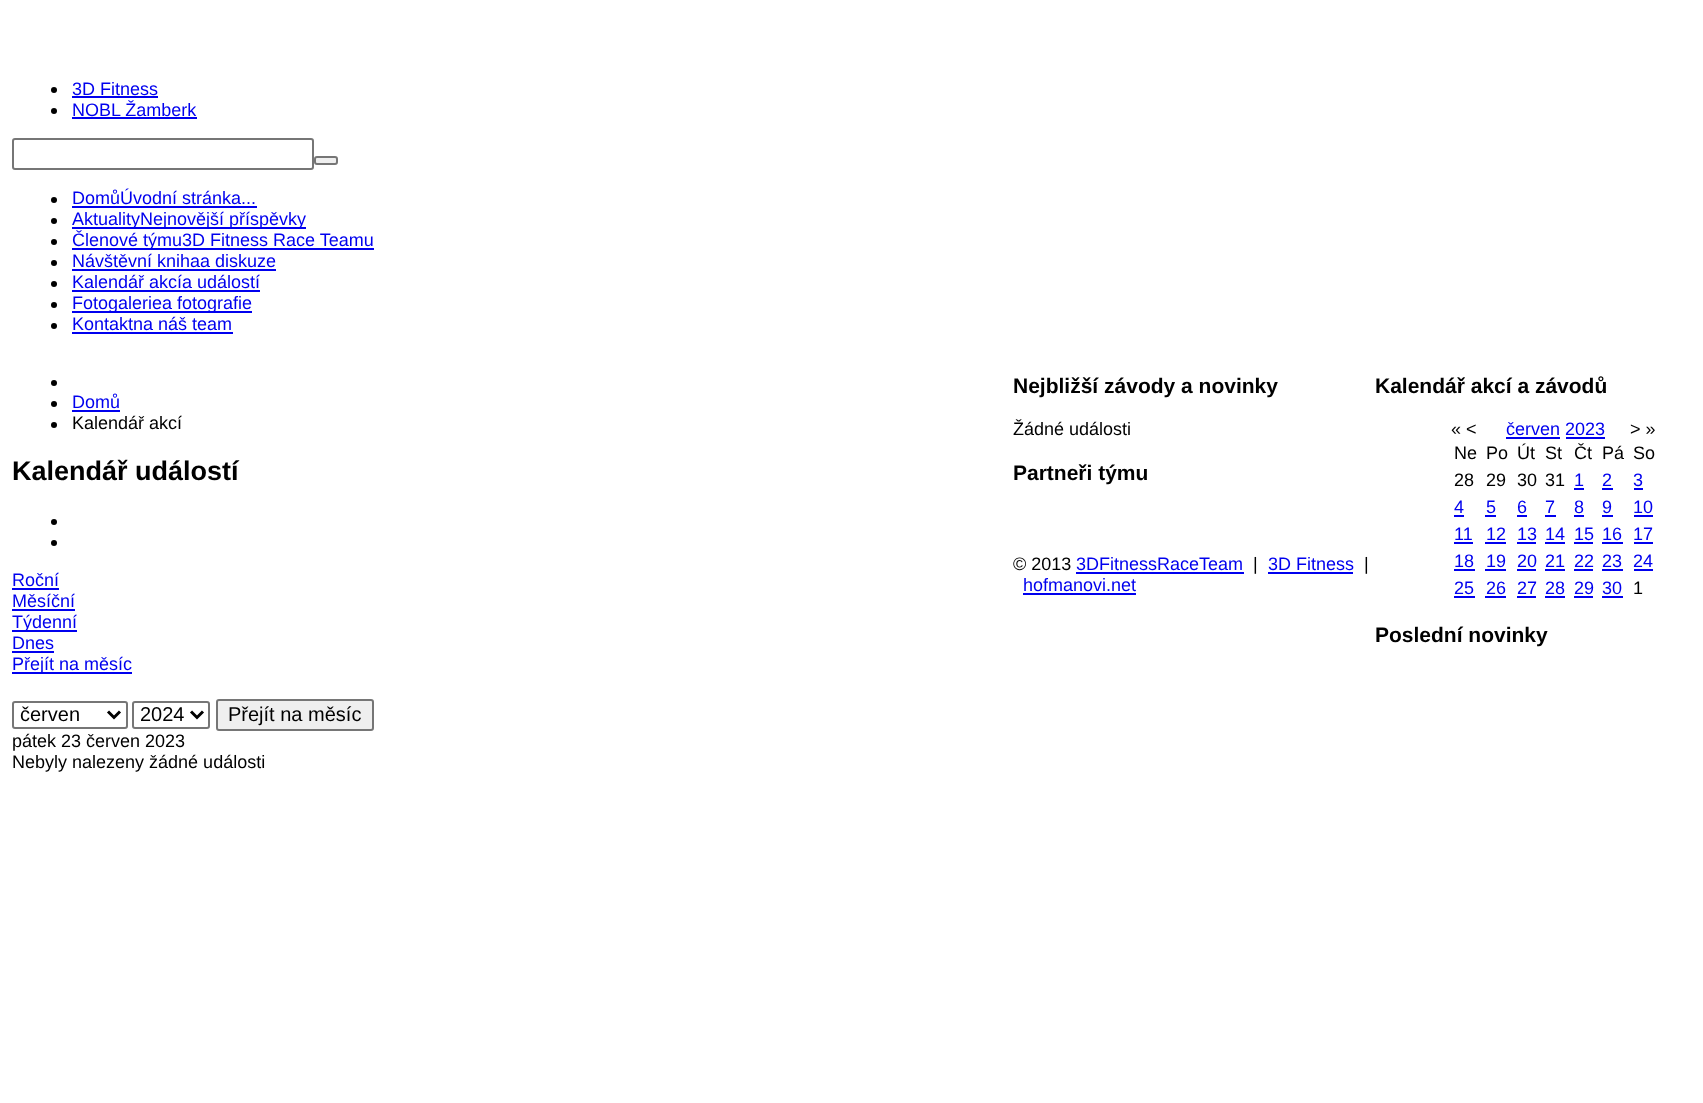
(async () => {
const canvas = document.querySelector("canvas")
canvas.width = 1703
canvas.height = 1103
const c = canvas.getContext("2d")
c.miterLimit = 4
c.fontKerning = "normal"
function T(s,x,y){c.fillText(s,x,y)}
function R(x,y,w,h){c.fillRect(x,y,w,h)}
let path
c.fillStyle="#fff"
R(0,0,1703,1103)
c.fillStyle="#000"
c.beginPath()
c.arc(54,90,3,0,7)
c.fill()
c.font="18px Liberation Sans"
c.fillStyle="#00e"
T("3D Fitness",72,95)
R(72,96,86,2)
c.fillStyle="#000"
c.beginPath()
c.arc(54,111,3,0,7)
c.fill()
c.fillStyle="#00e"
T("NOBL Žamberk",72,116)
R(72,117,125,2)
c.beginPath()
c.roundRect(13,139,300,30,2)
c.strokeStyle="#767676"
c.lineWidth=2
c.stroke()
c.fillStyle="#efefef"
c.beginPath()
c.roundRect(315,157,22,7,2)
c.fill()
c.stroke()
c.fillStyle="#000"
c.beginPath()
c.arc(54,200,3,0,7)
c.fill()
c.fillStyle="#00e"
T("DomůÚvodní stránka...",72,204)
R(72,206,185,2)
c.fillStyle="#000"
c.beginPath()
c.arc(54,221,3,0,7)
c.fill()
c.fillStyle="#00e"
R(72,227,234,2)
T("AktualityNejnovější příspěvky",72,225)
c.fillStyle="#000"
c.beginPath()
c.arc(54,242,3,0,7)
c.fill()
c.fillStyle="#00e"
R(72,248,302,2)
T("Členové týmu3D Fitness Race Teamu",72,246)
c.fillStyle="#000"
c.beginPath()
c.arc(54,263,3,0,7)
c.fill()
c.fillStyle="#00e"
T("Návštěvní knihaa diskuze",72,267)
R(72,269,204,2)
c.fillStyle="#000"
c.beginPath()
c.arc(54,284,3,0,7)
c.fill()
c.fillStyle="#00e"
T("Kalendář akcía událostí",72,288)
R(72,290,188,2)
c.fillStyle="#000"
c.beginPath()
c.arc(54,305,3,0,7)
c.fill()
c.fillStyle="#00e"
R(72,311,180,2)
T("Fotogaleriea fotografie",72,309)
c.fillStyle="#000"
c.beginPath()
c.arc(54,326,3,0,7)
c.fill()
c.fillStyle="#00e"
T("Kontaktna náš team",72,330)
R(72,332,161,2)
c.fillStyle="#000"
c.beginPath()
c.arc(54,383,3,0,7)
c.fill()
c.beginPath()
c.arc(54,404,3,0,7)
c.fill()
c.fillStyle="#00e"
T("Domů",72,408)
R(72,410,48,2)
c.fillStyle="#000"
c.beginPath()
c.arc(54,425,3,0,7)
c.fill()
T("Kalendář akcí",72,429)
c.font="bold 27px Liberation Sans"
T("Kalendář událostí",12,480)
c.beginPath()
c.arc(54,522,3,0,7)
c.fill()
c.beginPath()
c.arc(54,543,3,0,7)
c.fill()
c.font="18px Liberation Sans"
c.fillStyle="#00e"
T("Roční",12,586)
R(12,588,47,2)
T("Měsíční",12,607)
R(12,609,63,2)
R(12,630,65,2)
T("Týdenní",12,628)
T("Dnes",12,649)
R(12,651,42,2)
R(12,672,120,2)
T("Přejít na měsíc",12,670)
c.beginPath()
c.roundRect(13,702,114,26,2)
c.stroke()
path = new Path2D("M108 711.5l6 6l6-6")
c.strokeStyle="#000"
c.lineWidth=3
c.stroke(path)
c.font="20px Liberation Sans"
c.fillStyle="#000"
T("červen",20,721)
c.beginPath()
c.roundRect(133,702,76,26,2)
c.strokeStyle="#767676"
c.lineWidth=2
c.stroke()
path = new Path2D("M191 711.5l6 6l6-6")
c.strokeStyle="#000"
c.lineWidth=3
c.stroke(path)
T("2024",140,721)
c.fillStyle="#efefef"
c.beginPath()
c.roundRect(217,700,156,30,2)
c.fill()
c.strokeStyle="#767676"
c.lineWidth=2
c.stroke()
c.fillStyle="#000"
T("Přejít na měsíc",228,721)
c.font="18px Liberation Sans"
T("pátek 23 červen 2023",12,747)
T("Nebyly nalezeny žádné události",12,768)
c.font="bold 21px Liberation Sans"
T("Nejbližší závody a novinky",1013,393)
c.font="18px Liberation Sans"
T("Žádné události",1013,435)
c.font="bold 21px Liberation Sans"
T("Partneři týmu",1013,480)
T("Kalendář akcí a závodů",1375,393)
c.font="18px Liberation Sans"
T("« <",1451,435)
c.fillStyle="#00e"
T("červen 2023",1506,435)
R(1506,437,54,2)
R(1566,437,39,2)
c.fillStyle="#000"
T("> »",1630,435)
T("Ne",1454,459)
T("Po",1486,459)
T("Út",1517,459)
T("St",1545,459)
T("Čt",1574,459)
T("Pá",1602,459)
T("So",1633,459)
T("28",1454,486)
T("29",1486,486)
T("30",1517,486)
T("31",1545,486)
c.fillStyle="#00e"
T("1",1574,486)
R(1574,488,10,2)
T("2",1602,486)
R(1602,488,11,2)
T("3",1633,486)
R(1634,488,9,2)
T("4",1454,513)
R(1454,515,10,2)
T("5",1486,513)
R(1485,515,11,2)
T("6",1517,513)
R(1517,515,10,2)
T("7",1545,513)
R(1545,515,11,2)
T("8",1574,513)
R(1574,515,10,2)
T("9",1602,513)
R(1602,515,11,2)
T("10",1633,513)
R(1634,515,19,2)
T("11",1454,540)
R(1454,542,19,2)
T("12",1486,540)
R(1485,542,21,2)
T("13",1517,540)
R(1517,542,19,2)
T("14",1545,540)
R(1545,542,20,2)
T("15",1574,540)
R(1574,542,19,2)
T("16",1602,540)
R(1602,542,21,2)
T("17",1633,540)
R(1634,542,19,2)
T("18",1454,567)
R(1454,569,21,2)
T("19",1486,567)
R(1485,569,21,2)
T("20",1517,567)
R(1517,569,19,2)
T("21",1545,567)
R(1545,569,20,2)
T("22",1574,567)
R(1574,569,19,2)
T("23",1602,567)
R(1602,569,21,2)
T("24",1633,567)
R(1634,569,19,2)
T("25",1454,594)
R(1454,596,21,2)
T("26",1486,594)
R(1485,596,21,2)
T("27",1517,594)
R(1517,596,19,2)
T("28",1545,594)
R(1545,596,20,2)
T("29",1574,594)
R(1574,596,19,2)
T("30",1602,594)
R(1602,596,21,2)
c.fillStyle="#000"
T("1",1633,594)
c.font="bold 21px Liberation Sans"
T("Poslední novinky",1375,642)
c.font="18px Liberation Sans"
T("© 2013",1013,570)
c.fillStyle="#00e"
T("3DFitnessRaceTeam",1076,570)
R(1076,572,168,2)
c.fillStyle="#000"
T("|",1253,570)
c.fillStyle="#00e"
T("3D Fitness",1268,570)
R(1268,572,85,2)
c.fillStyle="#000"
T("|",1364,570)
c.fillStyle="#00e"
T("hofmanovi.net",1023,591)
R(1023,593,113,2)
})()
